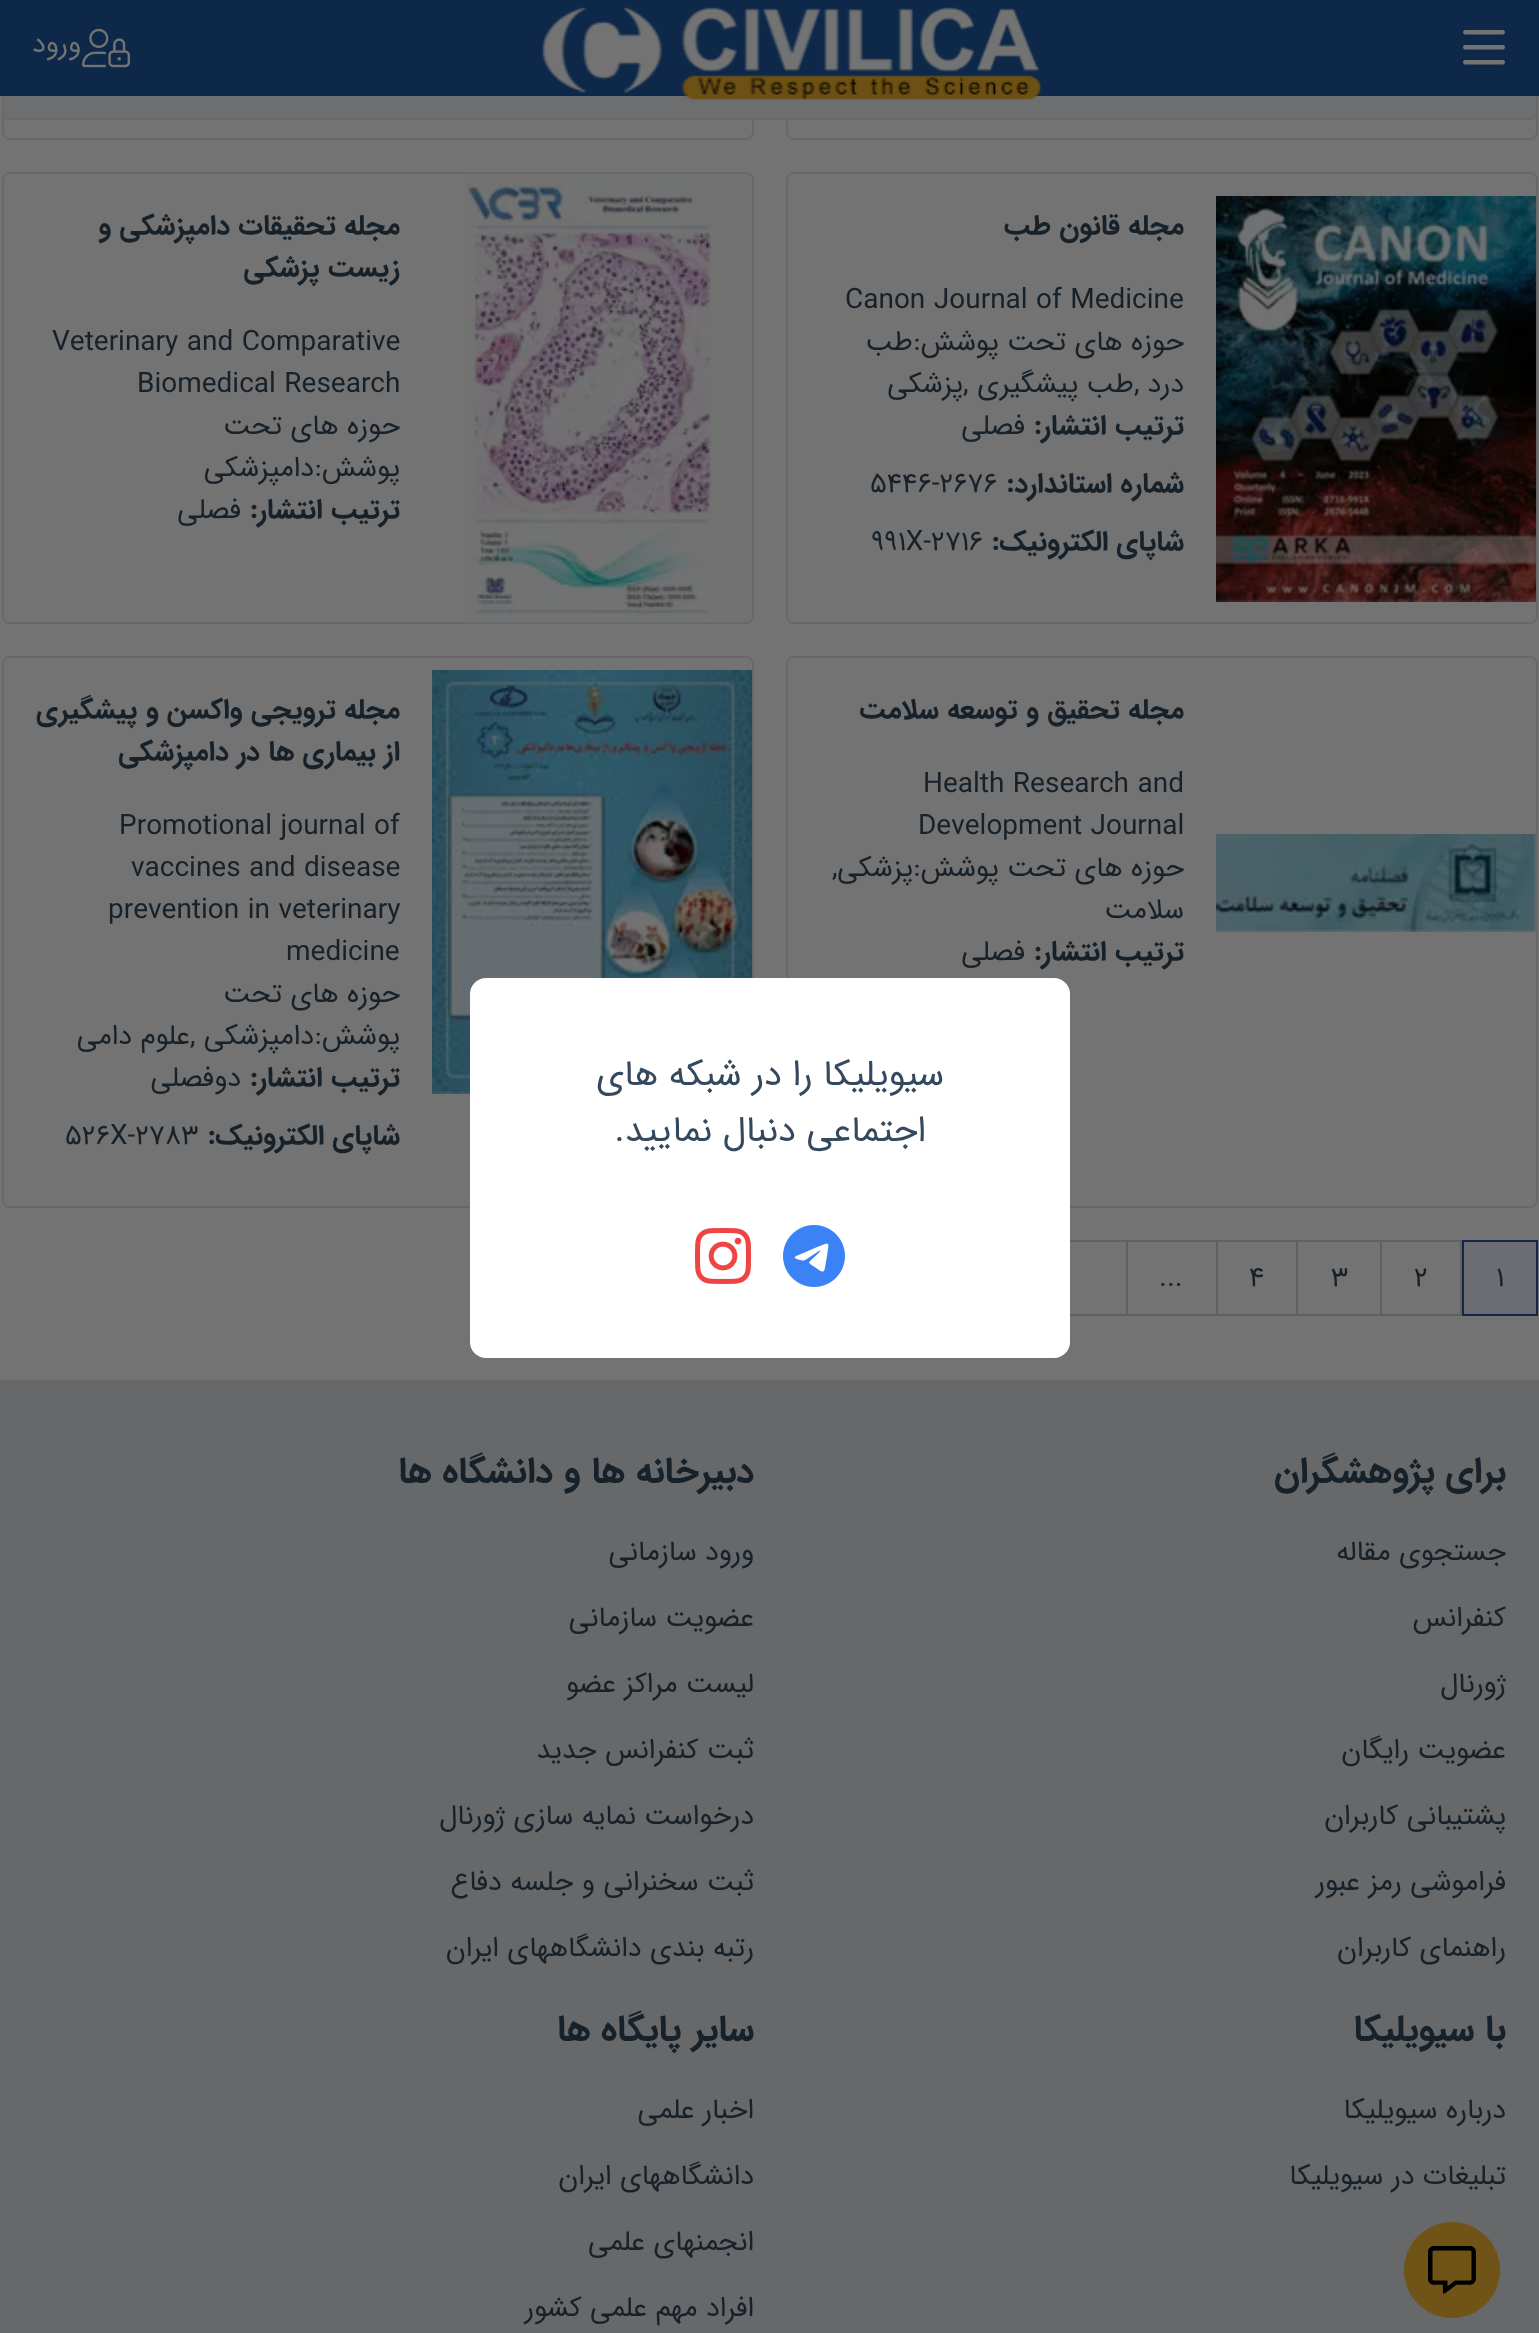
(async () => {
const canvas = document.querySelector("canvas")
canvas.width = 1539
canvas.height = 2333
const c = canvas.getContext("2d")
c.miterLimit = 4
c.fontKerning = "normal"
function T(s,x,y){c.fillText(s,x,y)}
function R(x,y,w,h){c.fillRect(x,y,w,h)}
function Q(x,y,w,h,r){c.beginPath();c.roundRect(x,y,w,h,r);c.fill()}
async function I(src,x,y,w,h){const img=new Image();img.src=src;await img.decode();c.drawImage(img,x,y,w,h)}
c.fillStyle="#737373"
R(0,0,1539,2333)
c.beginPath()
c.roundRect(787,-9,750,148,7)
c.strokeStyle="#67686a"
c.lineWidth=2
c.stroke()
c.beginPath()
c.roundRect(3,-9,750,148,7)
c.stroke()
c.fillStyle="#6d6e6f"
c.beginPath()
c.roundRect(3,1,1534,118,7)
c.fill()
c.stroke()
c.fillStyle="#0d2848"
R(0,0,1539,96)
await I("1.png",1463,30,42,35)
await I("2.png",542,7,500,93)
await I("3.png",82,28,48,40)
c.direction="rtl"
c.font="28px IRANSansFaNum"
c.fillStyle="#737373"
T("ورود",81,52)
c.beginPath()
c.roundRect(787,173,750,450,7)
c.stroke()
await I("4.png",1216,196,320,406)
c.font="bold 28px IRANSansFaNum"
c.fillStyle="#17212a"
T("مجله قانون طب",1184,234)
c.direction="ltr"
c.font="28px IRANSansFaNum"
T("Canon Journal of Medicine",845,308)
c.direction="rtl"
T("حوزه های تحت پوشش:",1184,350)
T("طب",913,350)
T("درد",1184,392)
c.direction="ltr"
T(",",1134,392)
c.direction="rtl"
T("طب پیشگیری",1134,392)
c.direction="ltr"
T(",",963,392)
c.direction="rtl"
T("پزشکی",963,392)
c.font="bold 28px IRANSansFaNum"
T("ترتیب انتشار:",1184,434)
c.font="28px IRANSansFaNum"
T("فصلی",1025,434)
c.font="bold 28px IRANSansFaNum"
T("شماره استاندارد:",1184,492)
c.direction="ltr"
c.font="28px IRANSansFaNum"
T("5446-2676",870,492)
c.direction="rtl"
c.font="bold 28px IRANSansFaNum"
T("شاپای الکترونیک:",1184,550)
c.direction="ltr"
c.font="28px IRANSansFaNum"
T("991X-2716",871,550)
c.beginPath()
c.roundRect(3,173,750,450,7)
c.stroke()
await I("5.png",464,174,285,447)
c.direction="rtl"
c.font="bold 28px IRANSansFaNum"
T("مجله تحقیقات دامپزشکی و",400,234)
T("زیست پزشکی",400,276)
c.direction="ltr"
c.font="28px IRANSansFaNum"
T("Veterinary and Comparative",52,350)
T("Biomedical Research",137,392)
c.direction="rtl"
T("حوزه های تحت",400,434)
T("پوشش:",400,476)
T("دامپزشکی",314,476)
c.font="bold 28px IRANSansFaNum"
T("ترتیب انتشار:",400,518)
c.font="28px IRANSansFaNum"
T("فصلی",241,518)
c.beginPath()
c.roundRect(787,657,750,550,7)
c.stroke()
await I("6.png",1216,834,320,98)
c.font="bold 28px IRANSansFaNum"
T("مجله تحقیق و توسعه سلامت",1184,718)
c.direction="ltr"
c.font="28px IRANSansFaNum"
T("Health Research and",923,792)
T("Development Journal",918,834)
c.direction="rtl"
T("حوزه های تحت پوشش:",1184,876)
T("پزشکی",913,876)
c.direction="ltr"
T(",",832,876)
c.direction="rtl"
T("سلامت",1184,918)
c.font="bold 28px IRANSansFaNum"
T("ترتیب انتشار:",1184,960)
c.font="28px IRANSansFaNum"
T("فصلی",1025,960)
c.beginPath()
c.roundRect(3,657,750,550,7)
c.stroke()
await I("7.png",432,670,320,424)
c.font="bold 28px IRANSansFaNum"
T("مجله ترویجی واکسن و پیشگیری",400,718)
T("از بیماری ها در دامپزشکی",400,760)
c.direction="ltr"
c.font="28px IRANSansFaNum"
T("Promotional journal of",119,834)
T("vaccines and disease",131,876)
T("prevention in veterinary",108,918)
T("medicine",286,960)
c.direction="rtl"
T("حوزه های تحت",400,1002)
T("پوشش:",400,1044)
T("دامپزشکی",314,1044)
c.direction="ltr"
T(",",190,1044)
c.direction="rtl"
T("علوم دامی",190,1044)
c.font="bold 28px IRANSansFaNum"
T("ترتیب انتشار:",400,1086)
c.font="28px IRANSansFaNum"
T("دوفصلی",241,1086)
c.font="bold 28px IRANSansFaNum"
T("شاپای الکترونیک:",400,1144)
c.direction="ltr"
c.font="28px IRANSansFaNum"
T("526X-2783",65,1144)
c.fillStyle="#6b6d73"
c.beginPath()
c.rect(1463,1241,74,74)
c.fill()
c.strokeStyle="#0d2848"
c.stroke()
c.fillStyle="#17212a"
T("1",1496,1286)
c.strokeStyle="#5e6063"
c.strokeRect(1381,1241,80,74)
T("2",1414,1286)
c.strokeRect(1297,1241,84,74)
T("3",1331,1286)
c.strokeRect(1217,1241,80,74)
T("4",1249,1286)
c.strokeRect(1127,1241,90,74)
T("...",1159,1286)
c.strokeRect(945,1241,182,74)
c.fillStyle="#fff"
Q(470,978,600,380,16)
c.direction="rtl"
c.font="36px IRANSansFaNum"
c.fillStyle="#34495e"
T("سیویلیکا را در شبکه های",944,1085)
T("اجتماعی دنبال نمایید.",926,1141)
await I("8.png",783,1225,62,62)
await I("9.png",695,1228,56,56)
c.fillStyle="#67686a"
R(0,1380,1539,953)
c.font="bold 36px IRANSansFaNum"
c.fillStyle="#17212a"
T("برای پژوهشگران",1506,1482)
c.font="28px IRANSansFaNum"
T("جستجوی مقاله",1506,1560)
T("کنفرانس",1506,1626)
T("ژورنال",1506,1692)
T("عضویت رایگان",1506,1758)
T("پشتیبانی کاربران",1506,1824)
T("فراموشی رمز عبور",1506,1890)
T("راهنمای کاربران",1506,1956)
c.font="bold 36px IRANSansFaNum"
T("دبیرخانه ها و دانشگاه ها",754,1482)
c.font="28px IRANSansFaNum"
T("ورود سازمانی",754,1560)
T("عضویت سازمانی",754,1626)
T("لیست مراکز عضو",754,1692)
T("ثبت کنفرانس جدید",754,1758)
T("درخواست نمایه سازی ژورنال",754,1824)
T("ثبت سخنرانی و جلسه دفاع",754,1890)
T("رتبه بندی دانشگاههای ایران",754,1956)
c.font="bold 36px IRANSansFaNum"
T("با سیویلیکا",1506,2040)
c.font="28px IRANSansFaNum"
T("درباره سیویلیکا",1506,2118)
T("تبلیغات در سیویلیکا",1506,2184)
c.font="bold 36px IRANSansFaNum"
T("سایر پایگاه ها",754,2040)
c.font="28px IRANSansFaNum"
T("اخبار علمی",754,2118)
T("دانشگاههای ایران",754,2184)
T("انجمنهای علمی",754,2250)
T("افراد مهم علمی کشور",754,2316)
c.fillStyle="#705316"
c.beginPath()
c.arc(1452,2270,48,0,7)
c.fill()
await I("10.png",1428,2246,48,48)
})()
